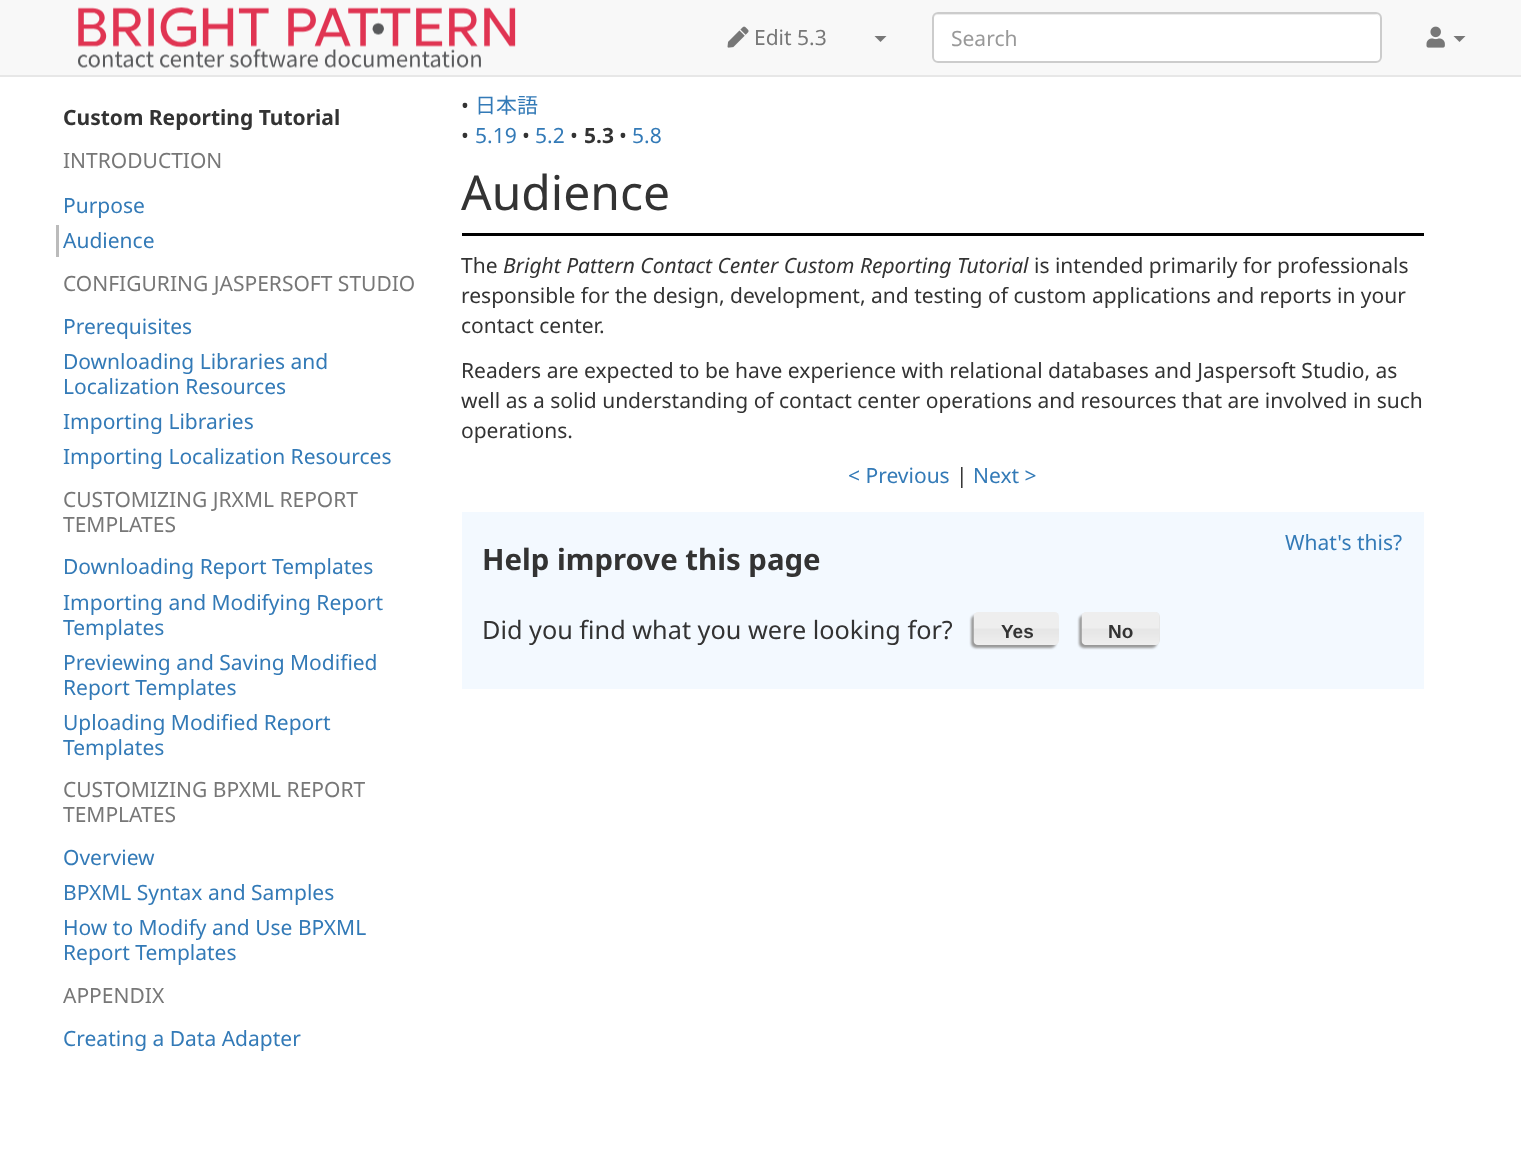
(async () => {
const canvas = document.querySelector("canvas")
canvas.width = 1521
canvas.height = 1166
const c = canvas.getContext("2d")
c.miterLimit = 4
c.fontKerning = "normal"
function T(s,x,y){c.fillText(s,x,y)}
function R(x,y,w,h){c.fillRect(x,y,w,h)}
function Q(x,y,w,h,r){c.beginPath();c.roundRect(x,y,w,h,r);c.fill()}
async function I(src,x,y,w,h){const img=new Image();img.src=src;await img.decode();c.drawImage(img,x,y,w,h)}
let path
c.fillStyle="#fff"
R(0,0,1521,1166)
c.fillStyle="#f8f8f8"
R(0,0,1521,75)
c.fillStyle="#e7e7e7"
R(0,75,1521,2)
await I("1.png",78,7,438,61)
await I("2.png",727,26,22,22)
c.font="21px Noto Sans"
c.fillStyle="#777"
T("Edit 5.3",754,45)
path = new Path2D("M874.5 36h12l-6 6z")
c.fill(path)
c.fillStyle="#fff"
Q(932,12,450,51,6)
c.fillStyle="#ececec"
path = new Path2D("M938 15h438c2 0 4 2 4 5c0-3-2-6-5-6h-437c-3 0-5 3-5 6c0-3 2-5 5-5z")
c.fill(path)
c.beginPath()
c.roundRect(933,13,448,49,5)
c.strokeStyle="#ccc"
c.lineWidth=2
c.stroke()
c.fillStyle="#999"
T("Search",951,46)
await I("3.png",1426,26,19,22)
c.fillStyle="#777"
path = new Path2D("M1453.5 36h12l-6 6z")
c.fill(path)
c.font="bold 21px Noto Sans"
c.fillStyle="#333"
T("Custom Reporting Tutorial",63,125)
c.font="21px Noto Sans"
c.fillStyle="#777"
T("INTRODUCTION",63,168)
c.fillStyle="#337ab7"
T("Purpose",63,213)
c.fillStyle="#bbb"
R(56,225,3,32)
c.fillStyle="#337ab7"
T("Audience",63,248)
c.fillStyle="#777"
T("CONFIGURING JASPERSOFT STUDIO",63,291)
c.fillStyle="#337ab7"
T("Prerequisites",63,334)
T("Downloading Libraries and",63,369)
T("Localization Resources",63,394)
T("Importing Libraries",63,429)
T("Importing Localization Resources",63,464)
c.fillStyle="#777"
T("CUSTOMIZING JRXML REPORT",63,507)
T("TEMPLATES",63,532)
c.fillStyle="#337ab7"
T("Downloading Report Templates",63,574)
T("Importing and Modifying Report",63,610)
T("Templates",63,635)
T("Previewing and Saving Modified",63,670)
T("Report Templates",63,695)
T("Uploading Modified Report",63,730)
T("Templates",63,755)
c.fillStyle="#777"
T("CUSTOMIZING BPXML REPORT",63,797)
T("TEMPLATES",63,822)
c.fillStyle="#337ab7"
T("Overview",63,865)
T("BPXML Syntax and Samples",63,900)
T("How to Modify and Use BPXML",63,935)
T("Report Templates",63,960)
c.fillStyle="#777"
T("APPENDIX",63,1003)
c.fillStyle="#337ab7"
T("Creating a Data Adapter",63,1046)
c.fillStyle="#333"
T("•",461,113)
c.font="21px Noto Sans CJK JP"
c.fillStyle="#337ab7"
T("日本語",475,113)
c.font="21px Noto Sans"
c.fillStyle="#333"
T("•",461,143)
c.fillStyle="#337ab7"
T("5.19",475,143)
c.fillStyle="#333"
T("•",522,143)
c.fillStyle="#337ab7"
T("5.2",535,143)
c.fillStyle="#333"
T("•",570,143)
c.font="bold 21px Noto Sans"
T("5.3",584,143)
c.font="21px Noto Sans"
T("•",619,143)
c.fillStyle="#337ab7"
T("5.8",632,143)
c.fillStyle="#000"
R(462,233,962,3)
c.font="48px Noto Sans"
c.fillStyle="#333"
T("Audience",461,210)
c.font="21px Noto Sans"
T("The",461,273)
c.font="italic 21px Noto Sans"
T("Bright Pattern Contact Center Custom Reporting Tutorial",503,273)
c.font="21px Noto Sans"
T("is intended primarily for professionals",1034,273)
T("responsible for the design, development, and testing of custom applications and reports in your",461,303)
T("contact center.",461,333)
T("Readers are expected to be have experience with relational databases and Jaspersoft Studio, as",461,378)
T("well as a solid understanding of contact center operations and resources that are involved in such",461,408)
T("operations.",461,438)
c.fillStyle="#337ab7"
T("< Previous",848,483)
c.fillStyle="#333"
T("|",956,483)
c.fillStyle="#337ab7"
T("Next >",973,483)
c.fillStyle="#f3f9ff"
R(462,512,962,177)
c.fillStyle="#337ab7"
T("What's this?",1285,550)
c.font="bold 29.4px Noto Sans"
c.fillStyle="#333"
T("Help improve this page",482,570)
c.font="25.25px Noto Sans"
T("Did you find what you were looking for?",482,639)
c.fillStyle="#999"
c.filter="blur(1px)"
c.beginPath()
c.roundRect(971,615,85,33,5)
c.fill()
c.filter="none"
await I("4.png",973,612,86,33)
c.font="bold 19px Liberation Sans"
c.fillStyle="#333"
T("Yes",1001,638)
c.fillStyle="#999"
c.filter="blur(1px)"
c.beginPath()
c.roundRect(1079,615,78,33,5)
c.fill()
c.filter="none"
c.fillStyle="#e6e6e6"
Q(1082,612,78,33,5)
await I("5.png",1081,612,78,33)
c.fillStyle="#333"
T("No",1108,638)
})()
